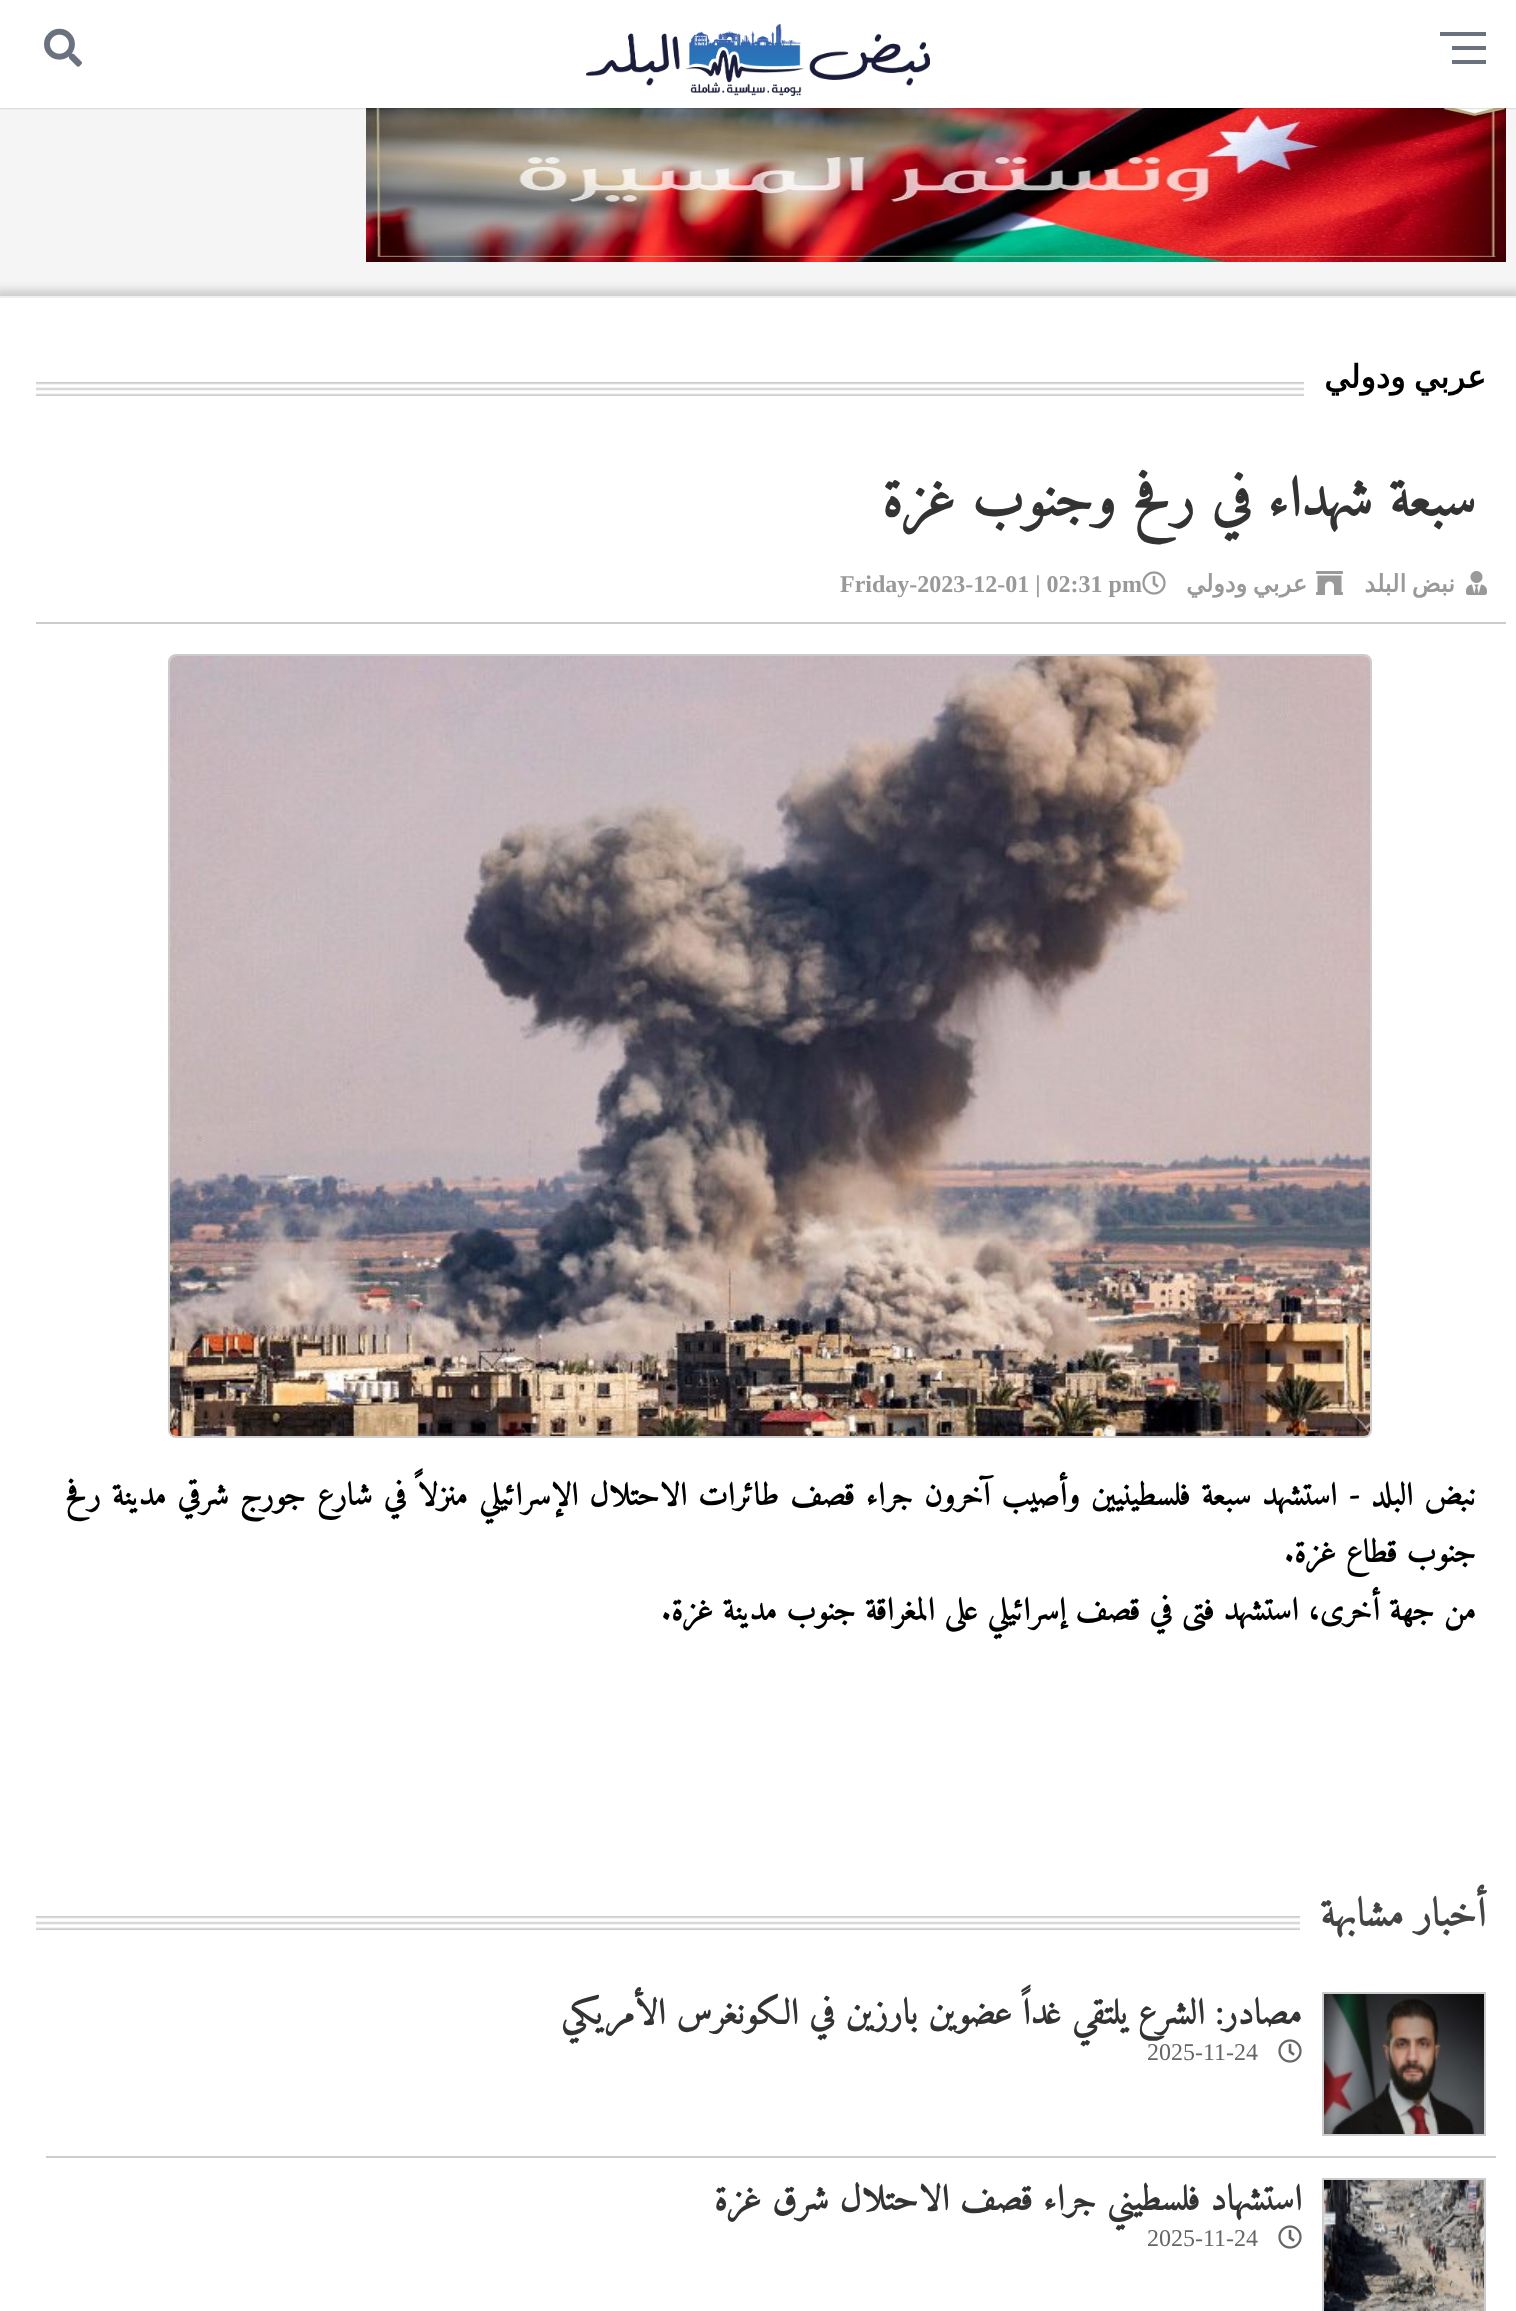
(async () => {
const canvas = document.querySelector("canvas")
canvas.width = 1516
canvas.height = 2311
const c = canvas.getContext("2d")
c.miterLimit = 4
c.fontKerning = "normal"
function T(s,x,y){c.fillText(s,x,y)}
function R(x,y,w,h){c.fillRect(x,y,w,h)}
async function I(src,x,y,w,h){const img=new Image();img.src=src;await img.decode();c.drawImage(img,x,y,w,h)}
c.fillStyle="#f5f5f5"
R(0,0,1516,2311)
await I("3.png",366,108,1140,154)
c.fillStyle="#0000004d"
c.filter="blur(1px)"
c.beginPath()
c.rect(0,0,1516,108)
c.fill()
c.filter="none"
c.fillStyle="#fff"
R(0,0,1516,108)
c.fillStyle="#6a717f"
R(1452,46,34,4)
R(1440,32,46,4)
R(1452,60,34,4)
await I("1.png",586,24,344,72)
await I("2.png",44,28,38,39)
c.fillStyle="#ccc"
c.filter="blur(5px)"
c.beginPath()
c.rect(-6,290,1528,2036)
c.fill()
c.filter="none"
c.fillStyle="#fff"
R(0,298,1516,2013)
c.fillStyle="#efefef"
R(0,296,1516,2)
await I("4.png",36,382,1268,14)
c.wordSpacing="-2px"
c.direction="rtl"
c.font="bold 32px DejaVu Sans"
c.fillStyle="#000"
T("عربي ودولي",1486,388)
c.wordSpacing="0px"
c.font="bold 56px Amiri"
c.fillStyle="#333"
T("سبعة شهداء في رفح وجنوب غزة",1476,516)
c.fillStyle="#ccc"
R(36,622,1470,2)
await I("5.png",1466,571,21,24)
c.wordSpacing="-2px"
c.font="bold 24px DejaVu Sans"
c.fillStyle="#999"
T("نبض البلد",1455,592)
await I("6.png",1316,571,27,24)
T("عربي ودولي",1307,592)
await I("7.png",1142,571,24,24)
c.wordSpacing="0px"
c.direction="ltr"
c.font="bold 24px Liberation Serif"
T("Friday-2023-12-01 | 02:31 pm",840,592)
c.beginPath()
c.roundRect(169,655,1202,782,7)
c.strokeStyle="#ccc"
c.lineWidth=2
c.stroke()
await I("8.png",170,656,1200,780)
c.wordSpacing="1.7px"
c.direction="rtl"
c.font="bold 32px Amiri"
c.fillStyle="#000"
T("نبض البلد -",1476,1505)
T("استشهد سبعة فلسطينيين وأصيب آخرون جراء قصف طائرات الاحتلال الإسرائيلي منزلاً في شارع جورج شرقي مدينة رفح",1337,1505)
c.wordSpacing="0px"
T("جنوب قطاع غزة.",1476,1562)
T("من جهة أخرى، استشهد فتى في قصف إسرائيلي على المغراقة جنوب مدينة غزة.",1476,1620)
await I("9.png",36,1916,1264,14)
c.font="bold 40px Amiri"
c.fillStyle="#444"
T("أخبار مشابهة",1486,1926)
c.fillStyle="#ccc"
R(46,2156,1450,2)
c.strokeRect(1323,1993,162,142)
await I("10.png",1324,1994,160,140)
c.font="bold 36px Amiri"
c.fillStyle="#333"
T("مصادر: الشرع يلتقي غداً عضوين بارزين في الكونغرس الأمريكي",1302,2024)
await I("11.png",1278,2039,24,24)
c.direction="ltr"
c.font="24px Liberation Serif"
c.fillStyle="#666"
T("2025-11-24",1147,2060)
c.strokeRect(1323,2179,162,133)
await I("12.png",1324,2180,160,131)
c.direction="rtl"
c.font="bold 36px Amiri"
c.fillStyle="#333"
T("استشهاد فلسطيني جراء قصف الاحتلال شرق غزة",1302,2210)
await I("11.png",1278,2225,24,24)
c.direction="ltr"
c.font="24px Liberation Serif"
c.fillStyle="#666"
T("2025-11-24",1147,2246)
})()
